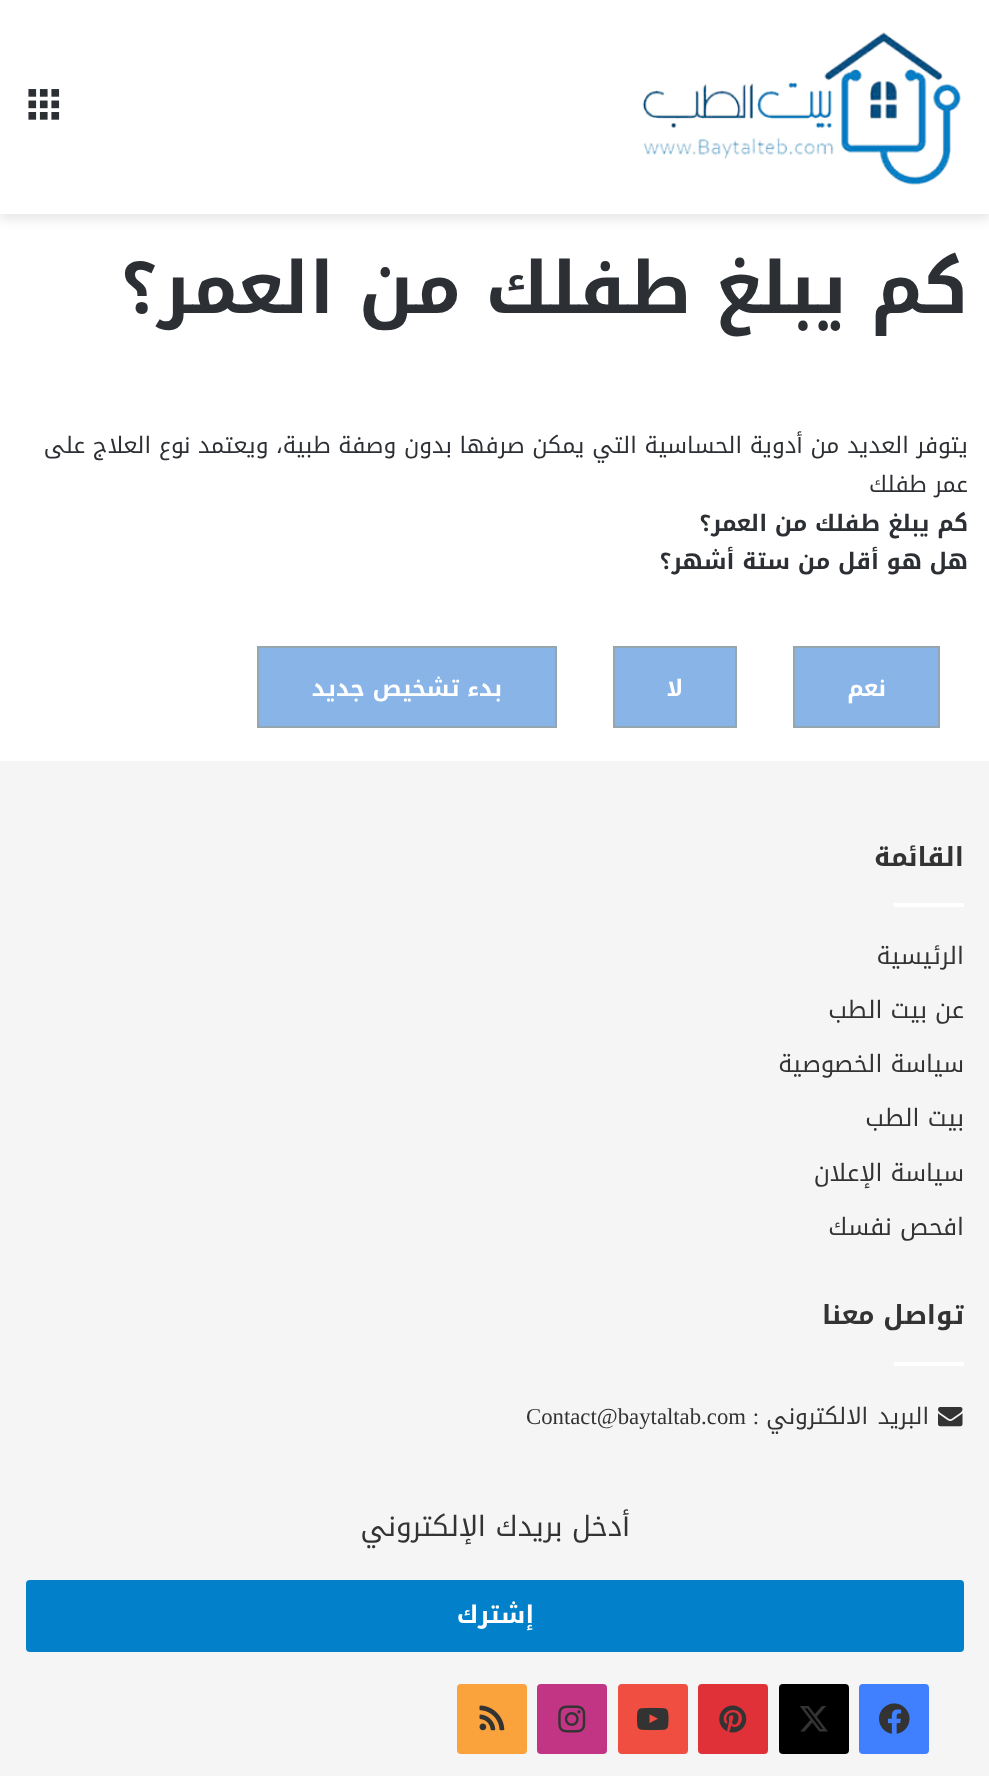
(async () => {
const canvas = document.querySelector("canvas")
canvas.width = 989
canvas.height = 1776
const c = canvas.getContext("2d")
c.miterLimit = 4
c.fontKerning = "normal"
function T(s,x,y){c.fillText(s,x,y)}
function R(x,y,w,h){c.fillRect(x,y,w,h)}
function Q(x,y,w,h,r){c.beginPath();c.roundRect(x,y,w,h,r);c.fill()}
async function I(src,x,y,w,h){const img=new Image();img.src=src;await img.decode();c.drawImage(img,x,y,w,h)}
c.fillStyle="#fff"
R(0,0,989,1776)
c.fillStyle="#0000001a"
c.filter="blur(6px)"
c.beginPath()
c.rect(0,5,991,214)
c.fill()
c.filter="none"
c.fillStyle="#fff"
R(0,0,989,214)
await I("1.png",642,32,319,153)
await I("2.png",28,89,32,31)
c.direction="rtl"
c.font="bold 71.75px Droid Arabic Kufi"
c.fillStyle="#2c2f34"
T("كم يبلغ طفلك من العمر؟",968,313)
c.font="22.75px Droid Arabic Kufi"
T("يتوفر العديد من أدوية الحساسية التي يمكن صرفها بدون وصفة طبية، ويعتمد نوع العلاج على",968,453)
T("عمر طفلك",968,492)
c.font="bold 22.75px Droid Arabic Kufi"
T("كم يبلغ طفلك من العمر؟",968,531)
T("هل هو أقل من ستة أشهر؟",968,569)
c.fillStyle="#88b4e7"
c.beginPath()
c.rect(794,647,145,80)
c.fill()
c.strokeStyle="#96a6af"
c.lineWidth=2
c.stroke()
c.fillStyle="#fff"
T("نعم",886,696)
c.fillStyle="#88b4e7"
c.beginPath()
c.rect(614,647,122,80)
c.fill()
c.stroke()
c.fillStyle="#fff"
T("لا",683,696)
c.fillStyle="#88b4e7"
c.beginPath()
c.rect(258,647,298,80)
c.fill()
c.stroke()
c.fillStyle="#fff"
T("بدء تشخيص جديد",502,696)
c.fillStyle="#f5f5f5"
R(0,761,989,1015)
c.font="bold 26.25px Droid Arabic Kufi"
c.fillStyle="#333"
T("القائمة",964,866)
c.fillStyle="#fff"
R(894,903,70,4)
c.font="24px Droid Arabic Kufi"
c.fillStyle="#333"
T("الرئيسية",964,964)
T("عن بيت الطب",964,1018)
T("سياسة الخصوصية",964,1072)
T("بيت الطب",964,1126)
T("سياسة الإعلان",964,1181)
T("افحص نفسك",964,1235)
c.font="bold 26.25px Droid Arabic Kufi"
T("تواصل معنا",964,1324)
c.fillStyle="#fff"
R(894,1362,70,4)
await I("3.png",938,1407,25,20)
c.wordSpacing="2px"
c.font="22.75px Droid Arabic Kufi"
c.fillStyle="#333"
T("البريد الالكتروني",929,1424)
c.wordSpacing="0px"
c.font="22.75px Liberation Serif"
T(":",759,1424)
c.direction="ltr"
T("Contact@baytaltab.com",526,1424)
c.direction="rtl"
c.font="28px Droid Arabic Kufi"
T("أدخل بريدك الإلكتروني",630,1536)
c.fillStyle="#0280ca"
Q(26,1580,938,72,4)
c.font="bold 24.5px Droid Arabic Kufi"
c.fillStyle="#fff"
T("إشترك",534,1623)
c.fillStyle="#4080ff"
Q(859,1684,70,70,4)
await I("4.png",879,1703,31,31)
c.fillStyle="#000"
Q(779,1684,70,70,4)
await I("5.png",800,1706,28,26)
c.fillStyle="#e13138"
Q(698,1684,70,70,4)
await I("6.png",719,1705,28,28)
c.fillStyle="#ef4e41"
Q(618,1684,70,70,4)
await I("7.png",637,1707,32,24)
c.fillStyle="#c13584"
Q(537,1684,70,70,4)
await I("8.png",558,1705,28,28)
c.fillStyle="#faa33d"
Q(457,1684,70,70,4)
await I("9.png",479,1705,26,26)
})()
